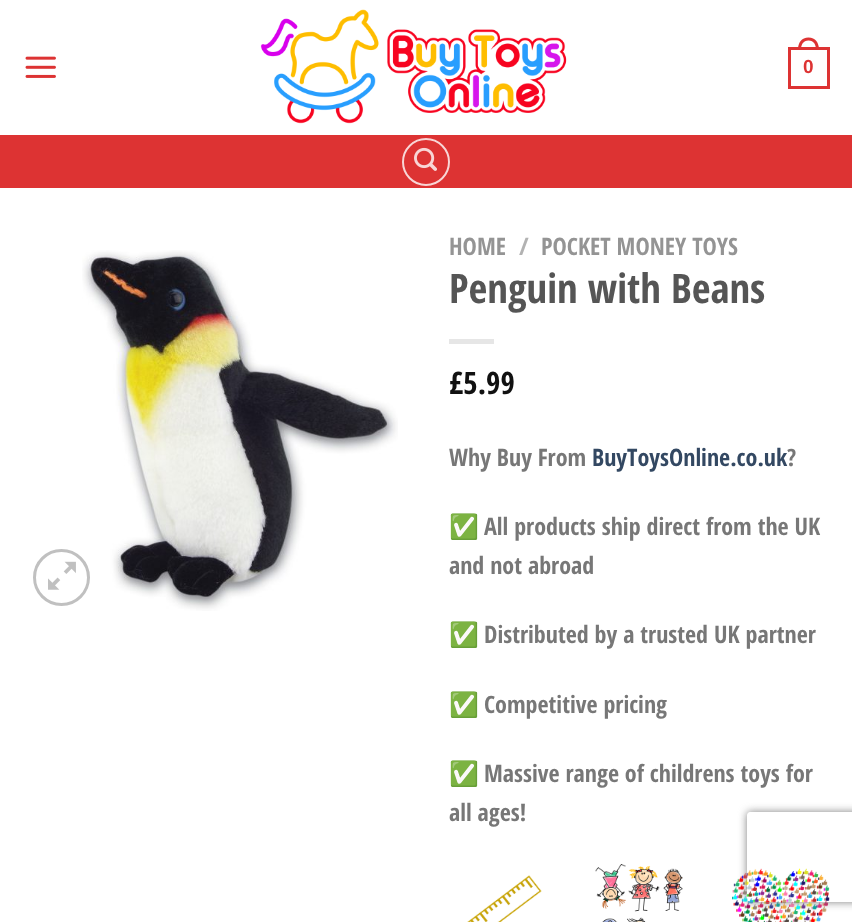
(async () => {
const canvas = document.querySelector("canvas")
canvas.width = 852
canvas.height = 922
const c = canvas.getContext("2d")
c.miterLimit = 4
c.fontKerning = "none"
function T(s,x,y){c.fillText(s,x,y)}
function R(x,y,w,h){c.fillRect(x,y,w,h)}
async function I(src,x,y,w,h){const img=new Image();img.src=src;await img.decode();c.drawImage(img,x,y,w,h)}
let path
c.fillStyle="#fff"
R(0,0,852,922)
await I("1.png",25,56,31,22)
await I("2.png",260,9,307,115)
c.strokeStyle="#d33"
c.lineWidth=3
c.strokeRect(789.5,48.5,39,39)
c.fillStyle="#d33"
path = new Path2D("M808.5 37.5c7 0 10.5 5.5 10.5 12h-21c0-6.5 3.5-12 10.5-12zm0 3c5.5 0 7.5 4.5 7.5 9h-15c0-4.5 2-9 7.5-9z")
c.fill(path,"evenodd")
c.font="bold 19px Liberation Sans"
T("0",803,73)
R(0,135,852,53)
c.beginPath()
c.arc(426,162,23,0,7)
c.strokeStyle="#f8d6d6"
c.lineWidth=2
c.stroke()
await I("3.png",414,147,23,24)
await I("5.png",82,250,316,361)
c.beginPath()
c.arc(61.5,577.5,27,0,7)
c.strokeStyle="#c0c0c0"
c.lineWidth=3
c.stroke()
await I("4.png",48,561,28,29)
c.font="bold 24px Open Sans Condensed"
c.fillStyle="#949494"
T("HOME",449,255)
c.fillStyle="#b2b2b2"
T("/",519,255)
c.fillStyle="#949494"
T("POCKET MONEY TOYS",541,255)
c.font="bold 40.75px Open Sans Condensed"
c.fillStyle="#555"
T("Penguin with Beans",449,303)
c.fillStyle="#e6e6e6"
R(449,339,45,5)
c.font="bold 31px Open Sans Condensed"
c.fillStyle="#111"
T("£5.99",449,394)
c.font="bold 24px Open Sans Condensed"
c.fillStyle="#777"
T("Why Buy From",449,466)
c.fillStyle="#334862"
T("BuyToysOnline.co.uk",592,466)
c.fillStyle="#777"
T("?",787,466)
c.font="24px Noto Color Emoji"
T("✅",449,535)
c.font="bold 24px Open Sans Condensed"
T("All products ship direct from the UK",484,535)
T("and not abroad",449,574)
c.font="24px Noto Color Emoji"
T("✅",449,643)
c.font="bold 24px Open Sans Condensed"
T("Distributed by a trusted UK partner",484,643)
c.font="24px Noto Color Emoji"
T("✅",449,713)
c.font="bold 24px Open Sans Condensed"
T("Competitive pricing",484,713)
c.font="24px Noto Color Emoji"
T("✅",449,782)
c.font="bold 24px Open Sans Condensed"
T("Massive range of childrens toys for",484,782)
T("all ages!",449,821)
await I("6.png",467,875,75,47)
await I("7.png",595,864,88,58)
await I("8.png",732,868,98,54)
c.save()
path = new Path2D("M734 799h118v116h-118zm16 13h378c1.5 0 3 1.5 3 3v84c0 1.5-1.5 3-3 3h-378c-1.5 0-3-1.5-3-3v-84c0-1.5 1.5-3 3-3z")
c.clip(path,"evenodd")
c.fillStyle="#808080"
c.filter="blur(4px)"
c.beginPath()
c.roundRect(747,812,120,90,3)
c.fill()
c.filter="none"
c.restore()
})()
